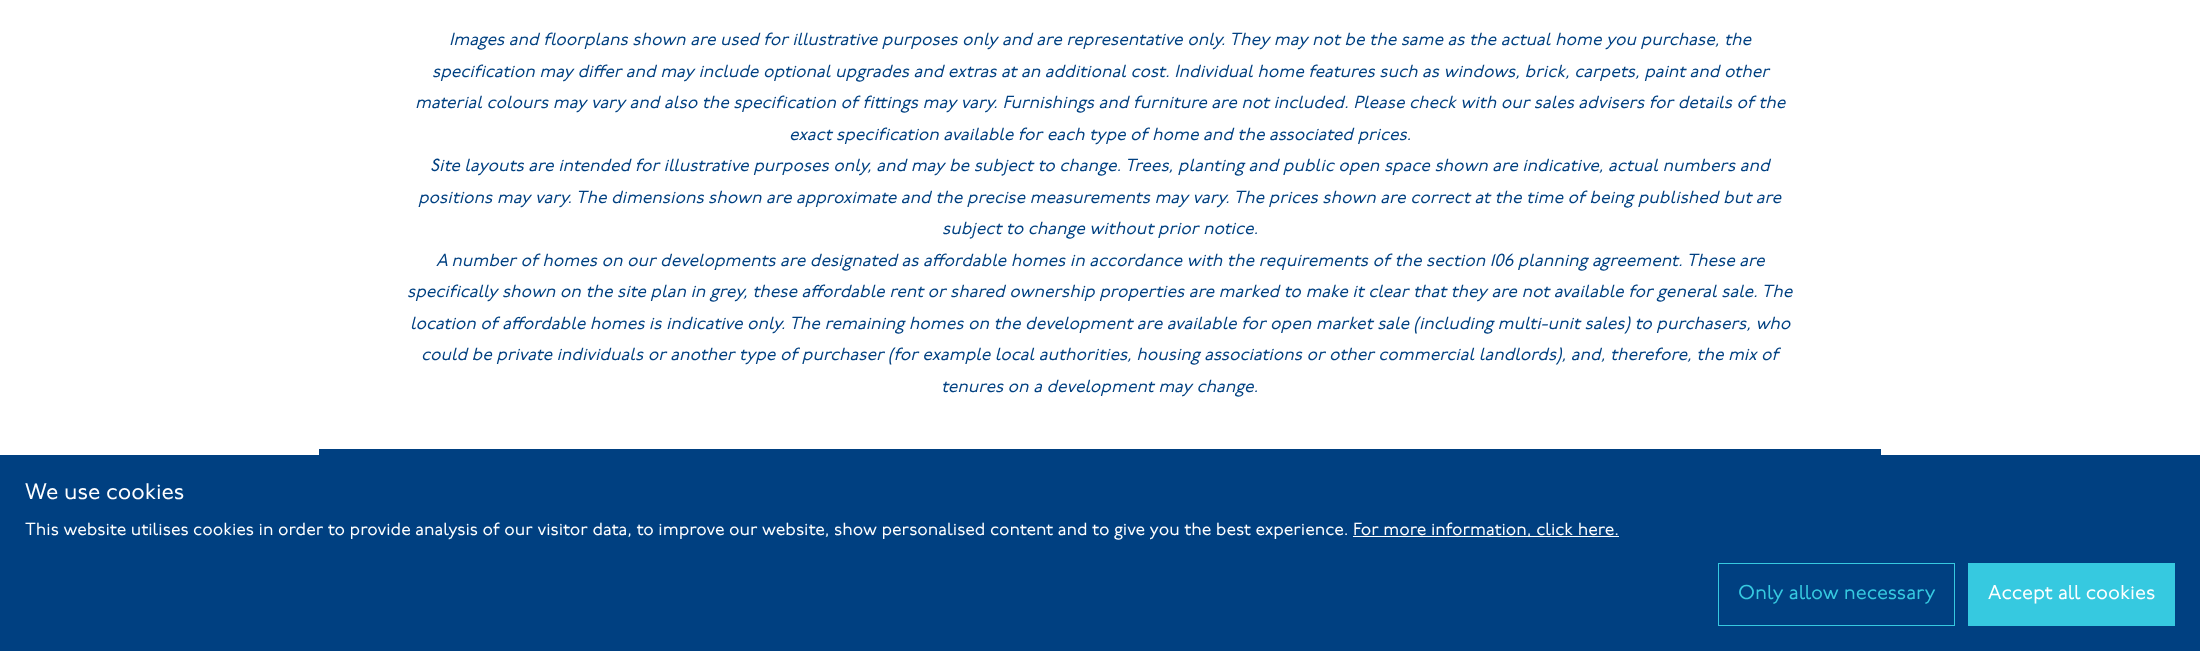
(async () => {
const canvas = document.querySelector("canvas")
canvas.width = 2200
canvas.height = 651
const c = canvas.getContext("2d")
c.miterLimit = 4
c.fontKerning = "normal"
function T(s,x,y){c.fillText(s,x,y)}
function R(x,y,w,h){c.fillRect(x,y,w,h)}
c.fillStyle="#fff"
R(0,0,2200,651)
c.font="italic 17.5px 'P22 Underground'"
c.fillStyle="#004081"
T("Images and floorplans shown are used for illustrative purposes only and are representative only. They may not be the same as the actual home you purchase, the",449,45)
T("specification may differ and may include optional upgrades and extras at an additional cost. Individual home features such as windows, brick, carpets, paint and other",432,77)
T("material colours may vary and also the specification of fittings may vary. Furnishings and furniture are not included. Please check with our sales advisers for details of the",415,108)
T("exact specification available for each type of home and the associated prices.",789,140)
T("Site layouts are intended for illustrative purposes only, and may be subject to change. Trees, planting and public open space shown are indicative, actual numbers and",430,171)
T("positions may vary. The dimensions shown are approximate and the precise measurements may vary. The prices shown are correct at the time of being published but are",418,203)
T("subject to change without prior notice.",942,234)
T("A number of homes on our developments are designated as affordable homes in accordance with the requirements of the section 106 planning agreement. These are",436,266)
T("specifically shown on the site plan in grey, these affordable rent or shared ownership properties are marked to make it clear that they are not available for general sale. The",407,297)
T("location of affordable homes is indicative only. The remaining homes on the development are available for open market sale (including multi-unit sales) to purchasers, who",410,329)
T("could be private individuals or another type of purchaser (for example local authorities, housing associations or other commercial landlords), and, therefore, the mix of",421,360)
T("tenures on a development may change.",941,392)
R(319,449,1562,6)
R(0,455,2200,196)
c.font="22.5px 'P22 Underground'"
c.fillStyle="#fff"
T("We use cookies",25,499)
c.font="17.5px 'P22 Underground'"
T("This website utilises cookies in order to provide analysis of our visitor data, to improve our website, show personalised content and to give you the best experience.",25,535)
R(1353,536,266,1)
T("For more information, click here.",1353,535)
c.strokeStyle="#36c9e0"
c.strokeRect(1718.5,563.5,236,62)
c.font="20px 'P22 Underground'"
c.fillStyle="#36c9e0"
T("Only allow necessary",1738,599)
R(1968,563,207,63)
c.fillStyle="#fff"
T("Accept all cookies",1988,599)
})()
